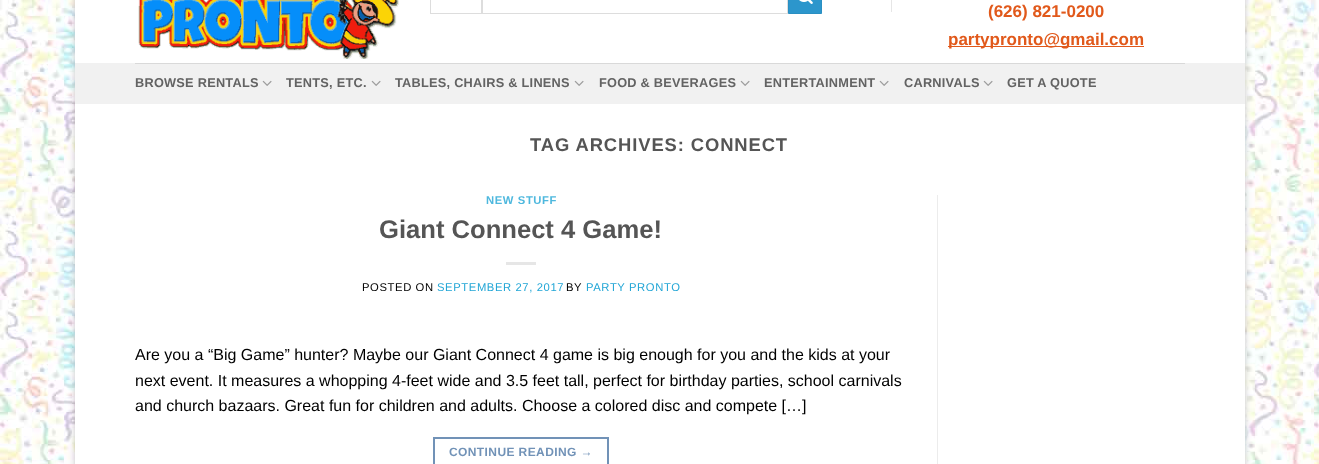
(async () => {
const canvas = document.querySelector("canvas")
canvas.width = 1319
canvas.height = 464
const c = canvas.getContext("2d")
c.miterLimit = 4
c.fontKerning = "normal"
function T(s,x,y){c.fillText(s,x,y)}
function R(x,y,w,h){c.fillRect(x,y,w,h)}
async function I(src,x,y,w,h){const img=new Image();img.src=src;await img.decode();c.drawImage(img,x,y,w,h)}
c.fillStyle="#fff"
R(0,0,1319,464)
await I("1.png",0,0,1319,464)
c.fillStyle="#0000003b"
c.filter="blur(3px)"
c.beginPath()
c.rect(75,-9,1170,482)
c.fill()
c.filter="none"
c.fillStyle="#fff"
R(75,0,1170,464)
await I("2.png",138,0,261,59)
c.strokeStyle="#ddd"
c.strokeRect(430.5,-.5,51,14)
c.strokeRect(482.5,-.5,305,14)
c.fillStyle="#2c96cc"
c.beginPath()
c.rect(788.5,-.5,33,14)
c.fill()
c.strokeStyle="#2a8fc2"
c.stroke()
await I("3.png",799,0,14,4)
c.fillStyle="#e6e6e6"
R(891,0,1,12)
c.font="bold 17px Liberation Sans"
c.fillStyle="#e1591b"
T("(626) 821-0200",988,17)
R(948,46,196,1)
T("partypronto@gmail.com",948,45)
c.fillStyle="#f1f1f1"
R(75,63,1170,41)
c.fillStyle="#d9d9d9"
R(135,63,1050,1)
c.letterSpacing="0.25px"
c.font="bold 12.75px Liberation Sans"
c.fillStyle="#636363"
T("BROWSE RENTALS",135,87)
await I("4.png",262,80,10,6)
T("TENTS, ETC.",286,87)
await I("4.png",371,80,10,6)
T("TABLES, CHAIRS & LINENS",395,87)
await I("4.png",574,80,10,6)
T("FOOD & BEVERAGES",599,87)
await I("4.png",740,80,10,6)
T("ENTERTAINMENT",764,87)
await I("4.png",879,80,10,6)
T("CARNIVALS",904,87)
await I("4.png",983,80,10,6)
T("GET A QUOTE",1007,87)
c.letterSpacing="0.9px"
c.font="bold 18.4px Liberation Sans"
c.fillStyle="#555"
T("TAG ARCHIVES: CONNECT",530,151)
c.letterSpacing="0.6px"
c.font="bold 11.25px Liberation Sans"
c.fillStyle="#4eb8de"
T("NEW STUFF",486,204)
c.letterSpacing="0px"
c.font="bold 25.6px Liberation Sans"
c.fillStyle="#555"
T("Giant Connect 4 Game!",379,238)
c.fillStyle="#e6e6e6"
R(506,262,30,3)
c.letterSpacing="0.6px"
c.font="11.25px Liberation Sans"
c.fillStyle="#000"
T("POSTED ON",362,291)
c.fillStyle="#22a6d6"
T("SEPTEMBER 27, 2017",437,291)
c.fillStyle="#000"
T("BY",566,291)
c.fillStyle="#22a6d6"
T("PARTY PRONTO",586,291)
c.letterSpacing="0px"
c.font="16px Liberation Sans"
c.fillStyle="#000"
T("Are you a “Big Game” hunter? Maybe our Giant Connect 4 game is big enough for you and the kids at your",135,360)
T("next event. It measures a whopping 4-feet wide and 3.5 feet tall, perfect for birthday parties, school carnivals",135,386)
T("and church bazaars. Great fun for children and adults. Choose a colored disc and compete […]",135,411)
c.strokeStyle="#7192b7"
c.lineWidth=2
c.strokeRect(434,438,174,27)
c.letterSpacing="0.4px"
c.font="bold 12px Liberation Sans"
c.fillStyle="#7192b7"
T("CONTINUE READING →",449,456)
c.fillStyle="#ececec"
R(937,195,1,269)
})()
